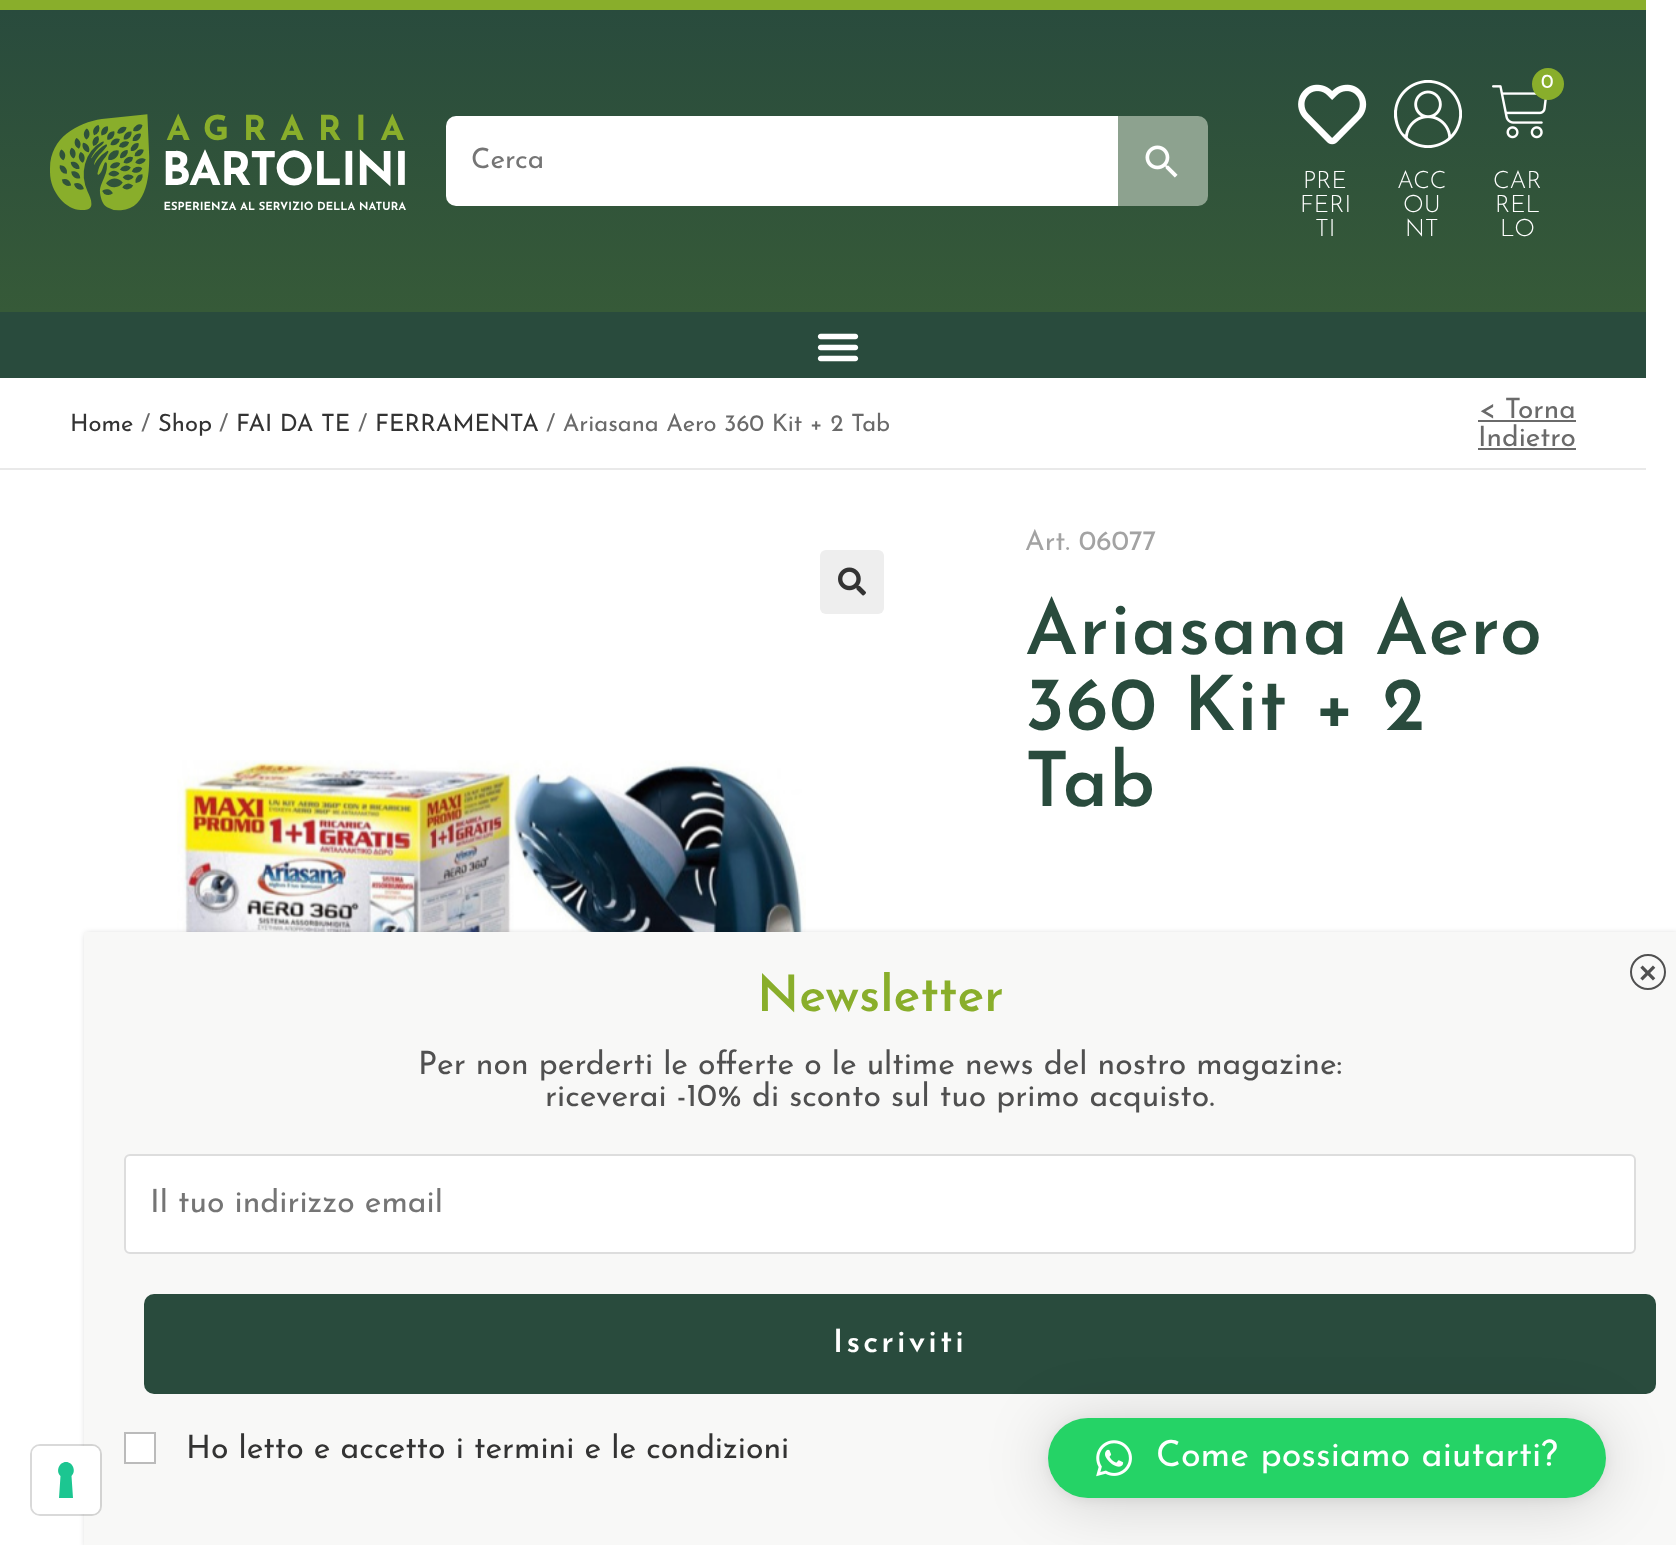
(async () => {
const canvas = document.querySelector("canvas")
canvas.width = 1676
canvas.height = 1545
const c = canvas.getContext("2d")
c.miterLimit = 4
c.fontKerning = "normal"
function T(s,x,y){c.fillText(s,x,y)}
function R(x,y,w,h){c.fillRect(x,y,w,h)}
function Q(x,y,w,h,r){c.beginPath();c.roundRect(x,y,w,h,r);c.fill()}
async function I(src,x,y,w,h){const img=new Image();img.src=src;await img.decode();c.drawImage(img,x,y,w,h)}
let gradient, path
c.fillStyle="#fff"
R(0,0,1676,1545)
gradient = c.createLinearGradient(823,10,823,312)
gradient.addColorStop(0,"#294b3d")
gradient.addColorStop(1,"#365a38")
c.fillStyle = gradient
R(0,10,1646,302)
c.fillStyle="#89ae2b"
R(0,0,1646,10)
await I("1.png",50,113,356,98)
c.fillStyle="#fff"
c.beginPath()
c.roundRect(446,116,672,90,[10,0,0,10])
c.fill()
c.font="28px Josefin Sans"
c.fillStyle="#757575"
T("Cerca",471,168)
c.fillStyle="#8da28f"
c.beginPath()
c.roundRect(1118,116,90,90,[0,10,10,0])
c.fill()
await I("2.png",1145,145,33,33)
await I("3.png",1298,84,69,61)
c.font="300 24px Josefin Sans"
c.fillStyle="#fff"
T("PRE",1303,188)
T("FERI",1300,212)
T("TI",1315,236)
await I("4.png",1394,80,68,68)
T("ACC",1397,188)
T("OU",1403,212)
T("NT",1405,236)
await I("5.png",1492,85,55,54)
c.fillStyle="#89ae2b"
c.beginPath()
c.arc(1548,84,16,0,7)
c.fill()
c.font="20px Josefin Sans"
c.fillStyle="#fff"
T("0",1541,88)
c.font="300 24px Josefin Sans"
T("CAR",1493,188)
T("REL",1495,212)
T("LO",1500,236)
c.fillStyle="#294b3d"
R(0,312,1646,66)
await I("6.png",817,333,42,29)
c.fillStyle="#e9e9e9"
R(0,468,1646,2)
c.font="23.75px Josefin Sans"
c.fillStyle="#333"
T("Home",70,431)
c.fillStyle="#6a6a6a"
T("/",141,431)
c.fillStyle="#333"
T("Shop",158,431)
c.fillStyle="#6a6a6a"
T("/",219,431)
c.fillStyle="#333"
T("FAI DA TE",236,431)
c.fillStyle="#6a6a6a"
T("/",358,431)
c.fillStyle="#333"
T("FERRAMENTA",375,431)
c.fillStyle="#6a6a6a"
T("/ Ariasana Aero 360 Kit + 2 Tab",546,431)
c.font="28px Josefin Sans"
T("< Torna",1479,418)
R(1478,420,98,2)
T("Indietro",1478,446)
R(1478,448,98,2)
c.fillStyle="#eee"
Q(820,550,64,64,6)
await I("7.png",838,567,28,29)
await I("8.png",177,760,629,172)
c.fillStyle="#a3a3a3"
T("Art. 06077",1025,550)
c.letterSpacing="1.25px"
c.font="600 76px Josefin Sans"
c.fillStyle="#294b3d"
T("Ariasana Aero",1025,654)
T("360 Kit + 2",1025,730)
T("Tab",1025,806)
c.fillStyle="#0202023b"
c.filter="blur(3px)"
c.beginPath()
c.rect(86,934,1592,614)
c.fill()
c.filter="none"
c.fillStyle="#f8f8f7"
R(84,932,1592,613)
c.letterSpacing="0px"
c.font="600 50px Josefin Sans"
c.fillStyle="#89ae2b"
T("Newsletter",757,1011)
c.beginPath()
c.arc(1648,972,17,0,7)
c.strokeStyle="#505050"
c.lineWidth=2
c.stroke()
c.font="bold 30px Liberation Sans"
c.fillStyle="#505050"
T("×",1639,983)
c.font="32px Josefin Sans"
T("Per non perderti le offerte o le ultime news del nostro magazine:",418,1074)
T("riceverai -10% di sconto sul tuo primo acquisto.",545,1106)
c.fillStyle="#fff"
c.beginPath()
c.roundRect(125,1155,1510,98,5)
c.fill()
c.strokeStyle="#ddd"
c.stroke()
c.save()
c.beginPath()
c.rect(150,1188,1460,32)
c.clip()
c.fillStyle="#757575"
T("Il tuo indirizzo email",150,1212)
c.restore()
c.fillStyle="#294b3d"
Q(144,1294,1512,100,10)
c.letterSpacing="3.25px"
c.font="600 32px Josefin Sans"
c.fillStyle="#fff"
T("Iscriviti",833,1352)
c.beginPath()
c.rect(125,1433,30,30)
c.fill()
c.strokeStyle="#bbb"
c.stroke()
c.letterSpacing="0px"
c.font="32px Josefin Sans"
c.fillStyle="#333"
T("Ho letto e accetto i termini e le condizioni",186,1458)
c.beginPath()
c.roundRect(31,1445,70,70,9)
c.strokeStyle="#00000026"
c.stroke()
c.fillStyle="#fff"
Q(32,1446,68,68,8)
c.fillStyle="#1cc691"
path = new Path2D("M66 1462c7 0 10.5 9.5 5.5 14l1.5 22h-14l1.5-22c-5-4.5-1.5-14 5.5-14z")
c.fill(path,"evenodd")
c.fillStyle="#00000029"
c.filter="blur(32px)"
c.beginPath()
c.roundRect(1048,1422,558,80,40)
c.fill()
c.filter="none"
c.fillStyle="#0000000f"
c.filter="blur(6px)"
c.beginPath()
c.roundRect(1048,1420,558,80,40)
c.fill()
c.filter="none"
c.fillStyle="#25d366"
Q(1048,1418,558,80,40)
await I("9.png",1096,1440,36,37)
c.font="36px Josefin Sans"
c.fillStyle="#fff"
T("Come possiamo aiutarti?",1156,1466)
})()
